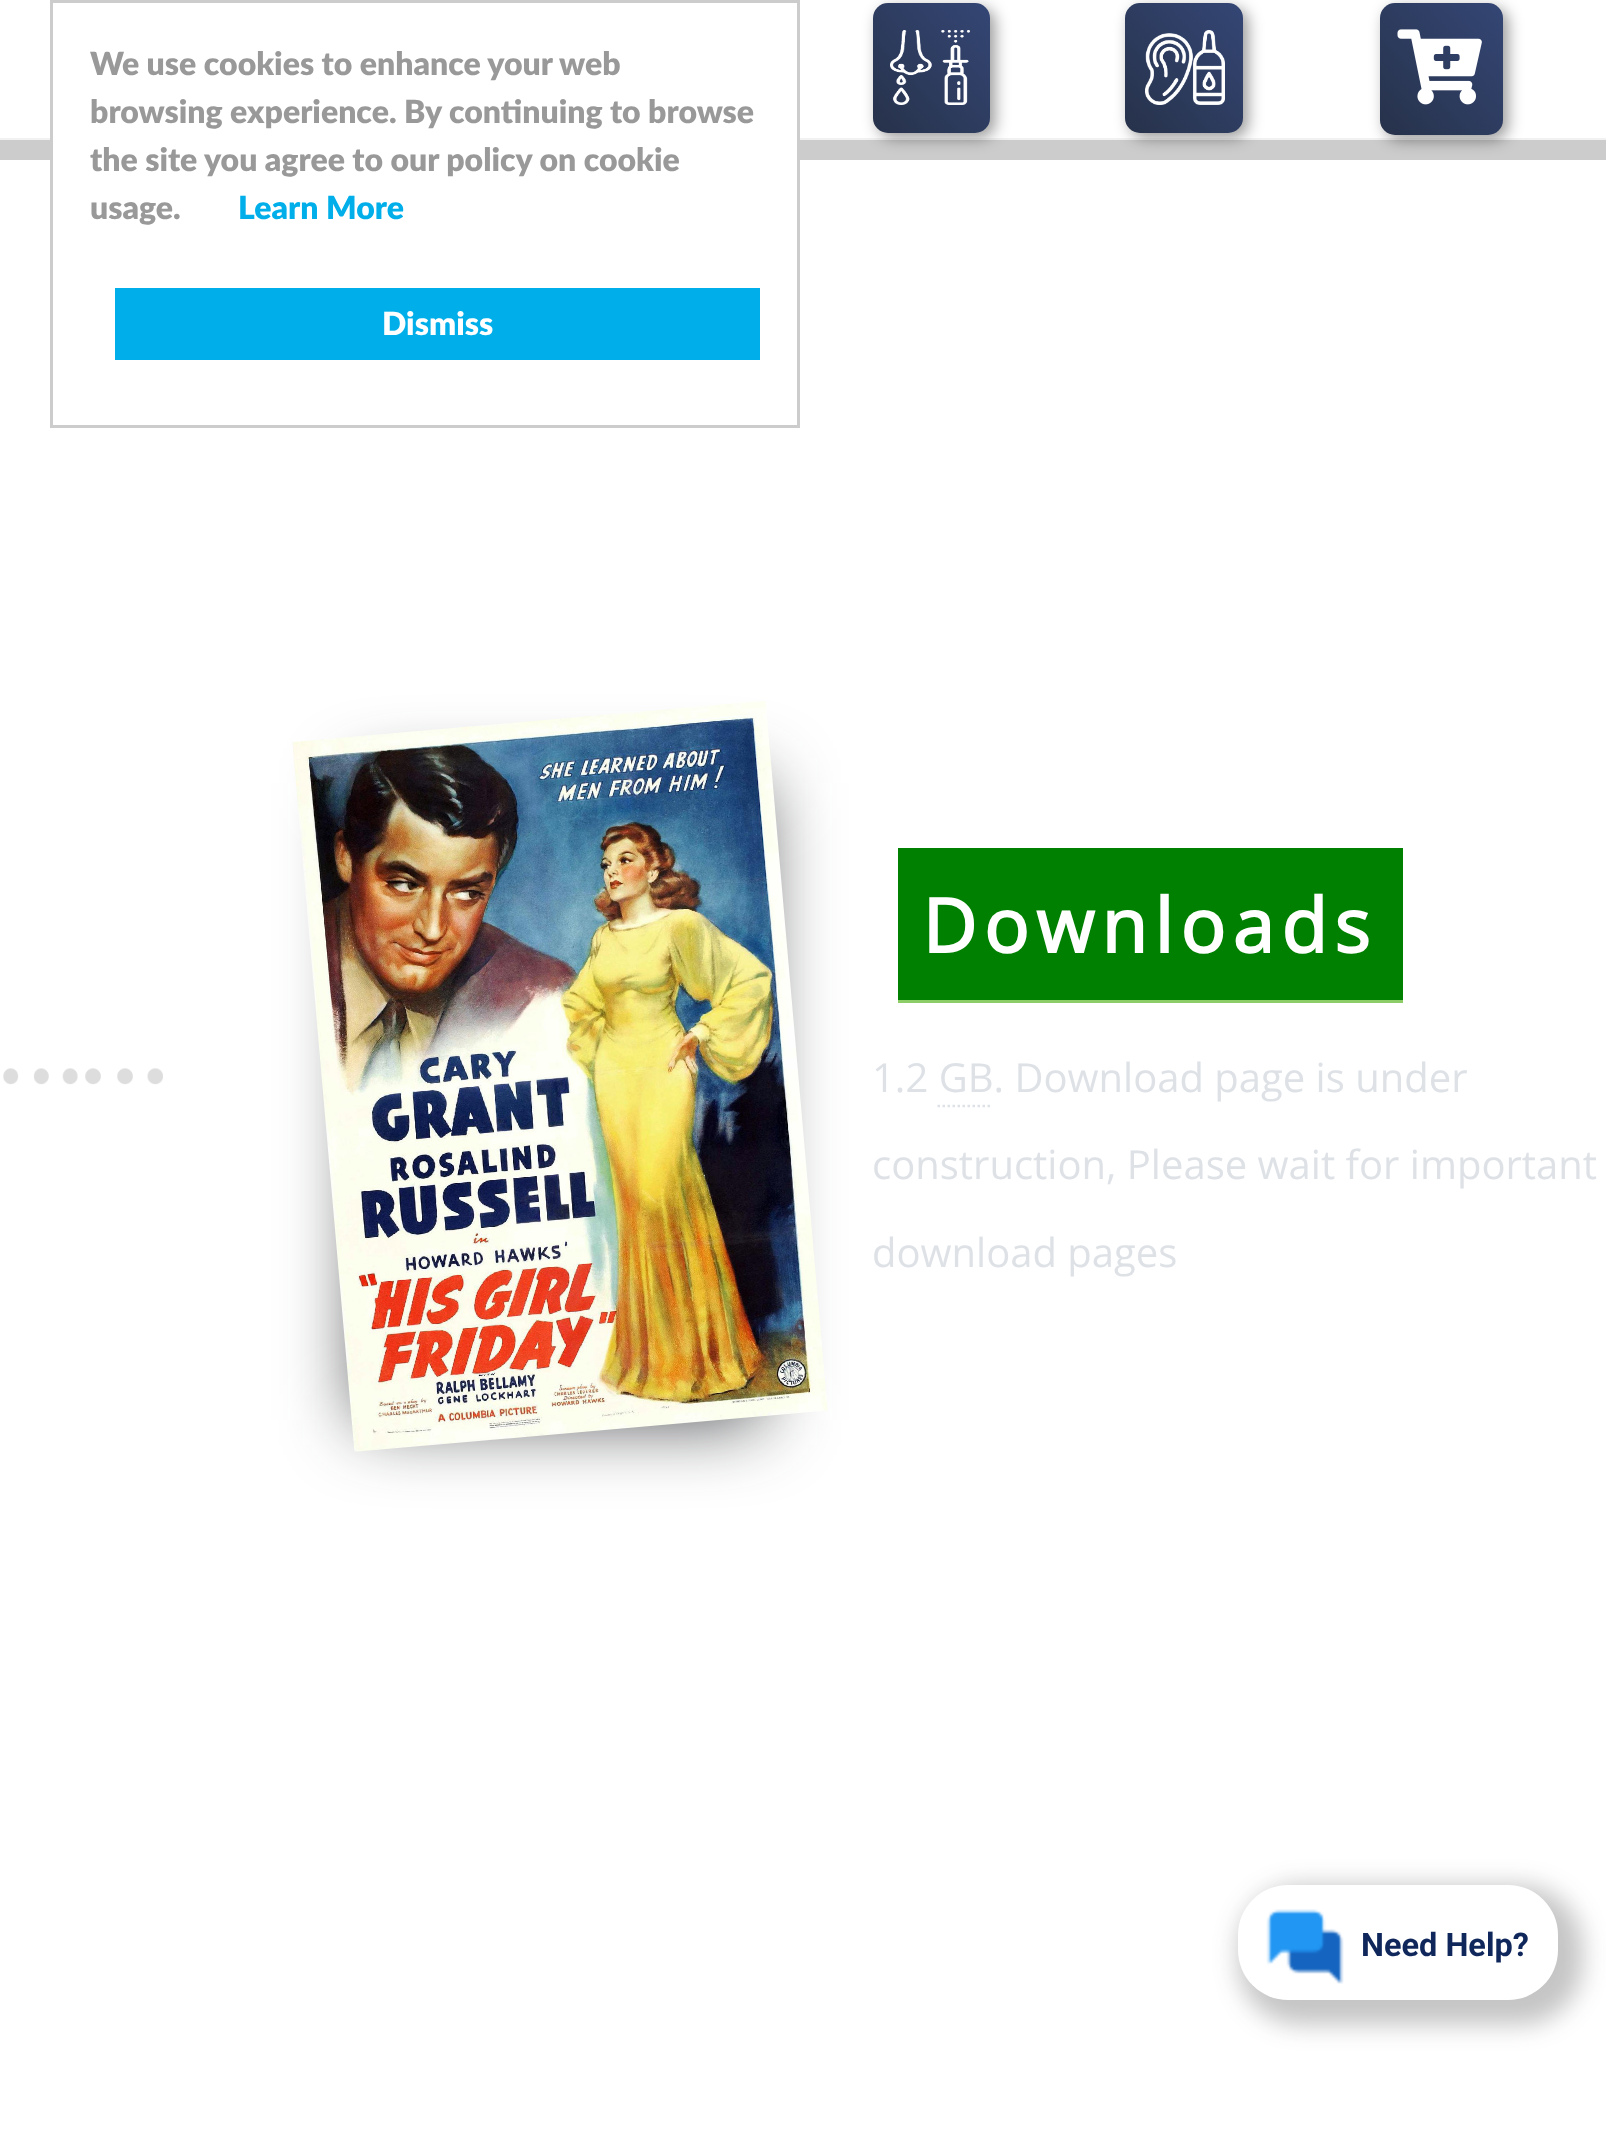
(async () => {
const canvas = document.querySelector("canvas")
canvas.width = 1606
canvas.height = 2151
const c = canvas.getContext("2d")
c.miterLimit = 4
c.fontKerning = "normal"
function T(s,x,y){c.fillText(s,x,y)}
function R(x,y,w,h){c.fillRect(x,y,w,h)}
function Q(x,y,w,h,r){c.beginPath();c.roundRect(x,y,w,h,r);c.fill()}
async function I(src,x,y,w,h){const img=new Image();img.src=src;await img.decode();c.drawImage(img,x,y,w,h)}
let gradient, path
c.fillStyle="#fff"
R(0,0,1606,2151)
c.fillStyle="#f1f1f1"
R(0,138,1606,2)
c.fillStyle="#ccc"
R(0,140,1606,20)
c.fillStyle="#fff"
R(53,138,744,22)
c.strokeStyle="#ccc"
c.lineWidth=3
c.strokeRect(51.5,1.5,747,425)
c.font="800 32px Lato"
c.fillStyle="#999"
T("We use cookies to enhance your web",90,75)
T("browsing experience. By continuing to browse",90,123)
T("the site you agree to our policy on cookie",90,171)
T("usage.",90,219)
c.fillStyle="#00afea"
T("Learn More",238,219)
R(115,288,645,72)
c.fillStyle="#fff"
T("Dismiss",382,335)
c.fillStyle="#00000066"
c.filter="blur(7.5px)"
c.beginPath()
c.roundRect(878,8,117,130,15)
c.fill()
c.filter="none"
gradient = c.createLinearGradient(1002,16,731,262)
gradient.addColorStop(0,"#344675")
gradient.addColorStop(.5,"#263148")
gradient.addColorStop(1,"#344675")
c.fillStyle = gradient
Q(873,3,117,130,15)
await I("1.png",890,30,80,75)
c.fillStyle="#00000066"
c.filter="blur(7.5px)"
c.beginPath()
c.roundRect(1130,8,118,130,15)
c.fill()
c.filter="none"
gradient = c.createLinearGradient(1255,16,983,262)
gradient.addColorStop(0,"#344675")
gradient.addColorStop(.5,"#263148")
gradient.addColorStop(1,"#344675")
c.fillStyle = gradient
Q(1125,3,118,130,15)
await I("2.png",1145,30,80,75)
c.fillStyle="#00000066"
c.filter="blur(7.5px)"
c.beginPath()
c.roundRect(1385,8,123,132,15)
c.fill()
c.filter="none"
gradient = c.createLinearGradient(1513,13,1235,270)
gradient.addColorStop(0,"#344675")
gradient.addColorStop(.5,"#263148")
gradient.addColorStop(1,"#344675")
c.fillStyle = gradient
Q(1380,3,123,132,15)
await I("3.png",1397,29,85,76)
await I("4.png",3,1068,75,17)
await I("5.png",85,1068,78,17)
c.fillStyle="#1e2124d9"
c.filter="blur(37.5px)"
c.beginPath()
c.rect(360,783,400,637)
c.fill()
c.filter="none"
await I("6.png",292,701,536,751)
c.fillStyle="#008000"
R(898,848,505,152)
c.letterSpacing="7.1px"
c.font="bold 75px Open Sans"
c.fillStyle="#fff"
T("Downloads",922,953)
c.fillStyle="#8ccd67"
R(898,1000,505,3)
c.letterSpacing="0px"
c.font="40px Open Sans"
c.fillStyle="#dee2e6"
T("1.2 GB. Download page is under",872,1092)
path = new Path2D("M937.5 1106h55")
c.strokeStyle="#dee2e6"
c.lineWidth=2.5
c.setLineDash([2.5,2.5])
c.stroke(path)
T("construction, Please wait for important",872,1179)
T("download pages",872,1267)
c.fillStyle="#2d2d2d47"
c.filter="blur(12.5px)"
c.beginPath()
c.roundRect(1238,1885,345,140,63)
c.fill()
c.filter="none"
c.fillStyle="#fff"
Q(1238,1885,320,115,50)
await I("7.png",1266,1909,78,75)
c.font="bold 32.5px Roboto"
c.fillStyle="#0f275b"
T("Need Help?",1361,1956)
})()
